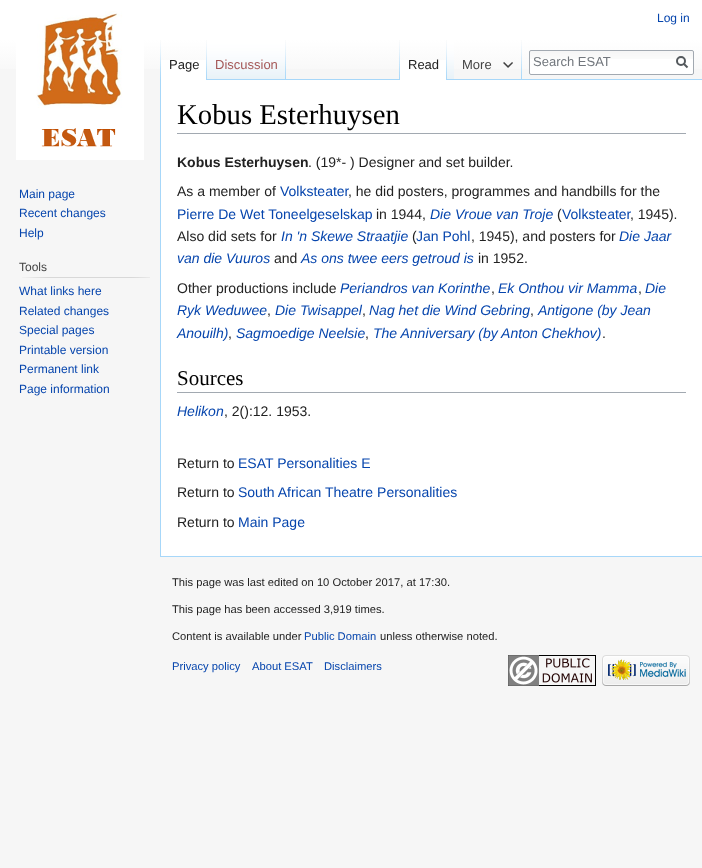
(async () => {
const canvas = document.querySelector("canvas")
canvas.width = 702
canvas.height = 868
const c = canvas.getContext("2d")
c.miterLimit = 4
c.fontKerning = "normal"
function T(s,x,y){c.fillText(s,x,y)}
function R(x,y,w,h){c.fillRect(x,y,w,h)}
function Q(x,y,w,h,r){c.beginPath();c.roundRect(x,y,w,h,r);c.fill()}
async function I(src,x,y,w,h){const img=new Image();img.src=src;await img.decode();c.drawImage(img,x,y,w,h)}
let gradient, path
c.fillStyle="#f6f6f6"
R(0,0,702,868)
gradient = c.createLinearGradient(351,0,351,80)
gradient.addColorStop(.5,"#fff")
gradient.addColorStop(1,"#f6f6f6")
c.fillStyle = gradient
R(0,0,702,69)
c.font="12px Liberation Sans"
c.fillStyle="#0645ad"
T("Log in",657,22)
await I("1.png",160,40,1,39)
c.fillStyle="#fff"
R(161,60,45,20)
await I("2.png",206,40,1,40)
c.font="13px Liberation Sans"
c.fillStyle="#222"
T("Page",169,69)
await I("3.png",207,40,78,39)
await I("1.png",285,40,1,39)
c.fillStyle="#a55858"
T("Discussion",215,69)
await I("1.png",399,40,1,39)
c.fillStyle="#a7d7f9"
R(207,79,495,1)
c.fillStyle="#fff"
R(400,60,46,20)
await I("2.png",446,40,1,40)
c.fillStyle="#222"
T("Read",408,69)
await I("4.png",447,40,7,39)
await I("1.png",521,40,1,39)
c.fillStyle="#444"
T("More",462,69)
await I("5.png",503,62,10,6)
c.fillStyle="#fff"
Q(529,50,165,25,2)
await I("6.png",529,51,165,8)
c.beginPath()
c.roundRect(529.5,50.5,164,24,1.5)
c.strokeStyle="#a2a9b1"
c.stroke()
c.fillStyle="#72777d"
T("Search ESAT",533,66)
path = new Path2D("M687.5 67.5l-4-4")
c.strokeStyle="#54595d"
c.lineWidth=2
c.stroke(path)
c.beginPath()
c.arc(681,61,4,0,7)
c.stroke()
await I("7.png",16,11,128,149)
c.font="12px Liberation Sans"
c.fillStyle="#0645ad"
T("Main page",19,198)
T("Recent changes",19,217)
T("Help",19,237)
c.fillStyle="#444"
T("Tools",19,271)
await I("8.png",22,277,128,1)
c.fillStyle="#0645ad"
T("What links here",19,295)
T("Related changes",19,315)
T("Special pages",19,334)
T("Printable version",19,354)
T("Permanent link",19,373)
T("Page information",19,393)
c.fillStyle="#fff"
R(161,80,541,476)
c.fillStyle="#a7d7f9"
R(160,556,542,1)
R(160,79,1,478)
c.fillStyle="#a2a9b1"
R(177,133,509,1)
c.font="28.75px Liberation Serif"
c.fillStyle="#000"
T("Kobus Esterhuysen",177,124)
c.font="bold 14px Liberation Sans"
c.fillStyle="#222"
T("Kobus Esterhuysen",177,167)
c.font="14px Liberation Sans"
T(". (19*- ) Designer and set builder.",308,167)
T("As a member of",177,196)
c.fillStyle="#0645ad"
T("Volksteater",280,196)
c.fillStyle="#222"
T(", he did posters, programmes and handbills for the",348,196)
c.fillStyle="#0645ad"
T("Pierre De Wet Toneelgeselskap",177,219)
c.fillStyle="#222"
T("in 1944,",376,219)
c.font="italic 14px Liberation Sans"
c.fillStyle="#0645ad"
T("Die Vroue van Troje",430,219)
c.font="14px Liberation Sans"
c.fillStyle="#222"
T("(",557,219)
c.fillStyle="#0645ad"
T("Volksteater",562,219)
c.fillStyle="#222"
T(", 1945).",630,219)
T("Also did sets for",177,241)
c.font="italic 14px Liberation Sans"
c.fillStyle="#0645ad"
T("In 'n Skewe Straatjie",281,241)
c.font="14px Liberation Sans"
c.fillStyle="#222"
T("(",412,241)
c.fillStyle="#0645ad"
T("Jan Pohl",416,241)
c.fillStyle="#222"
T(", 1945), and posters for",471,241)
c.font="italic 14px Liberation Sans"
c.fillStyle="#0645ad"
T("Die Jaar",619,241)
T("van die Vuuros",177,263)
c.font="14px Liberation Sans"
c.fillStyle="#222"
T("and",274,263)
c.font="italic 14px Liberation Sans"
c.fillStyle="#0645ad"
T("As ons twee eers getroud is",301,263)
c.font="14px Liberation Sans"
c.fillStyle="#222"
T("in 1952.",478,263)
T("Other productions include",177,293)
c.font="italic 14px Liberation Sans"
c.fillStyle="#0645ad"
T("Periandros van Korinthe",340,293)
c.font="14px Liberation Sans"
c.fillStyle="#222"
T(",",491,293)
c.font="italic 14px Liberation Sans"
c.fillStyle="#0645ad"
T("Ek Onthou vir Mamma",498,293)
c.font="14px Liberation Sans"
c.fillStyle="#222"
T(",",638,293)
c.font="italic 14px Liberation Sans"
c.fillStyle="#0645ad"
T("Die",645,293)
T("Ryk Weduwee",177,315)
c.font="14px Liberation Sans"
c.fillStyle="#222"
T(",",267,315)
c.font="italic 14px Liberation Sans"
c.fillStyle="#0645ad"
T("Die Twisappel",275,315)
c.font="14px Liberation Sans"
c.fillStyle="#222"
T(",",362,315)
c.font="italic 14px Liberation Sans"
c.fillStyle="#0645ad"
T("Nag het die Wind Gebring",369,315)
c.font="14px Liberation Sans"
c.fillStyle="#222"
T(",",530,315)
c.font="italic 14px Liberation Sans"
c.fillStyle="#0645ad"
T("Antigone (by Jean",538,315)
T("Anouilh)",177,338)
c.font="14px Liberation Sans"
c.fillStyle="#222"
T(",",228,338)
c.font="italic 14px Liberation Sans"
c.fillStyle="#0645ad"
T("Sagmoedige Neelsie",236,338)
c.font="14px Liberation Sans"
c.fillStyle="#222"
T(",",365,338)
c.font="italic 14px Liberation Sans"
c.fillStyle="#0645ad"
T("The Anniversary (by Anton Chekhov)",373,338)
c.font="14px Liberation Sans"
c.fillStyle="#222"
T(".",602,338)
c.fillStyle="#a2a9b1"
R(177,392,509,1)
c.font="21px Liberation Serif"
c.fillStyle="#000"
T("Sources",177,385)
c.font="italic 14px Liberation Sans"
c.fillStyle="#0645ad"
T("Helikon",177,416)
c.font="14px Liberation Sans"
c.fillStyle="#222"
T(", 2():12. 1953.",224,416)
T("Return to",177,468)
c.fillStyle="#0645ad"
T("ESAT Personalities E",238,468)
c.fillStyle="#222"
T("Return to",177,497)
c.fillStyle="#0645ad"
T("South African Theatre Personalities",238,497)
c.fillStyle="#222"
T("Return to",177,527)
c.fillStyle="#0645ad"
T("Main Page",238,527)
c.font="11.2px Liberation Sans"
c.fillStyle="#222"
T("This page was last edited on 10 October 2017, at 17:30.",172,586)
T("This page has been accessed 3,919 times.",172,613)
T("Content is available under",172,640)
c.fillStyle="#0645ad"
T("Public Domain",304,640)
c.fillStyle="#222"
T("unless otherwise noted.",380,640)
c.fillStyle="#0645ad"
T("Privacy policy",172,670)
T("About ESAT",252,670)
T("Disclaimers",324,670)
await I("9.png",508,655,88,31)
await I("10.png",602,655,88,31)
})()
